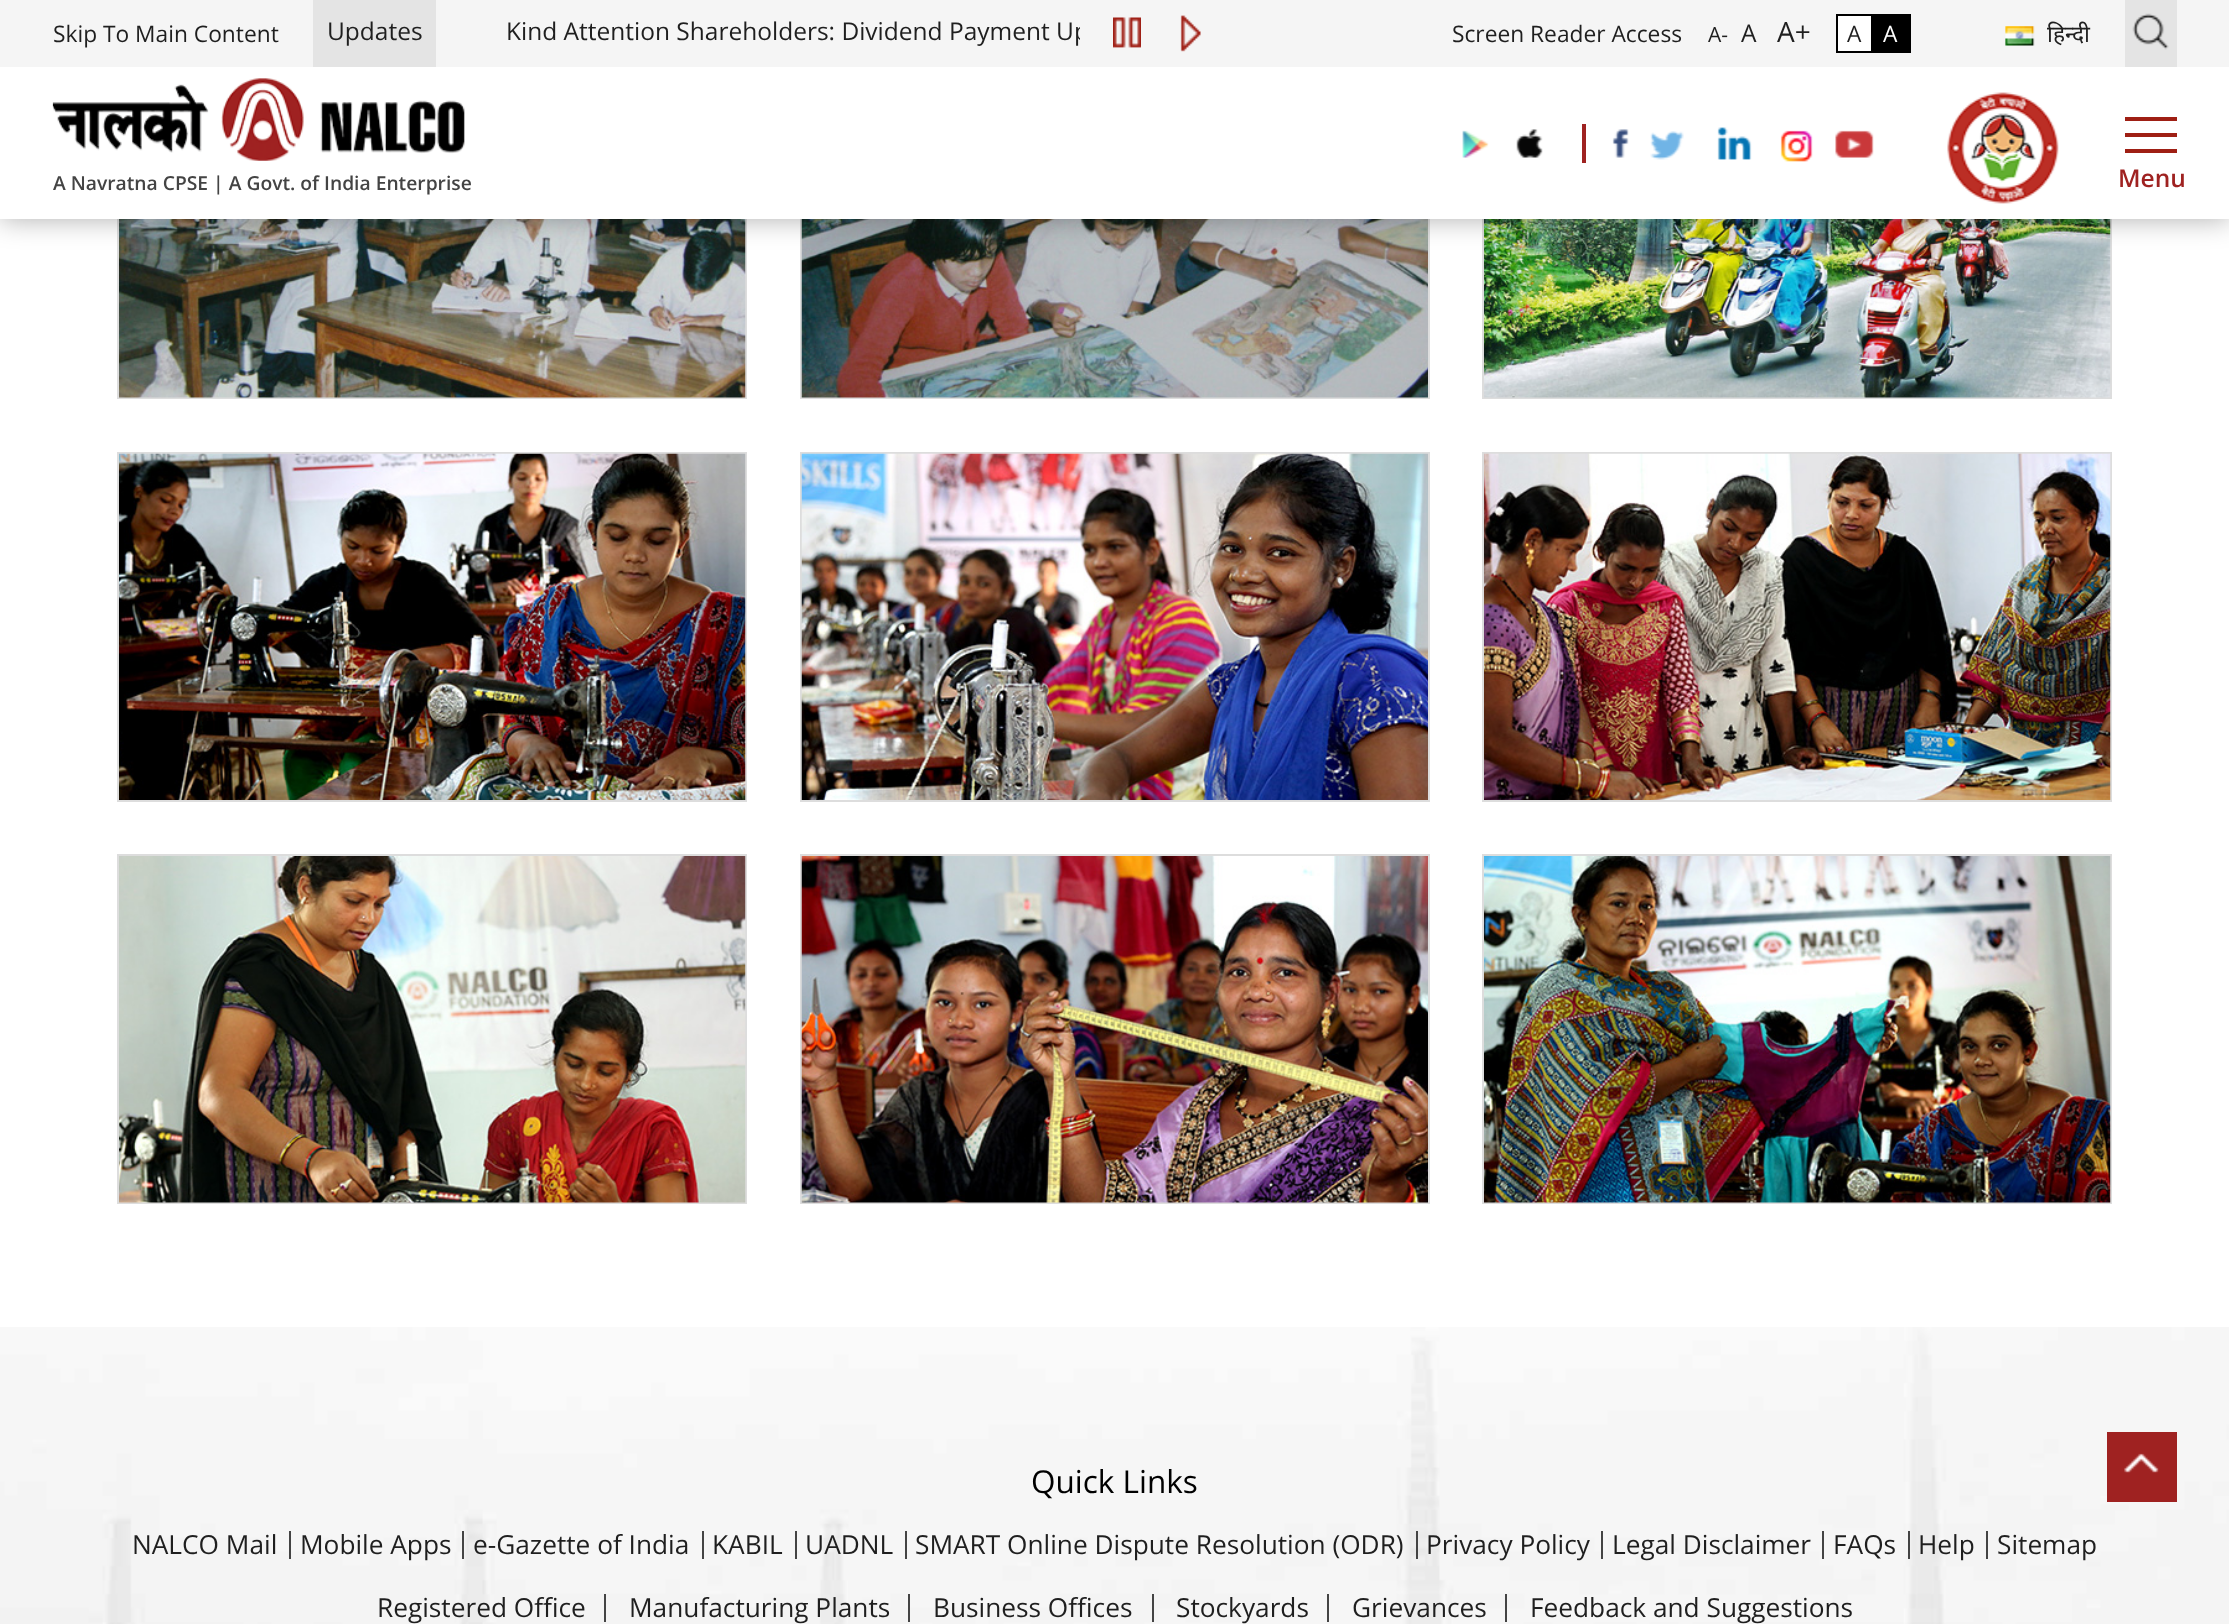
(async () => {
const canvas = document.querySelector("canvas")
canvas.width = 2229
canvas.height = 1624
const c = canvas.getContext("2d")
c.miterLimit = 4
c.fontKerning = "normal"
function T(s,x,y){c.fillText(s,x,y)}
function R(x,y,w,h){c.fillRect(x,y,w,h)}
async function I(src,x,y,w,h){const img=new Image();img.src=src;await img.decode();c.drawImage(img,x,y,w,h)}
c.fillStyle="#fff"
R(0,0,2229,1624)
c.strokeStyle="#ddd"
c.lineWidth=2
c.strokeRect(118,50,628,348)
await I("14.png",119,219,627,179)
c.strokeRect(801,50,628,348)
await I("15.png",801,219,627,179)
c.strokeRect(1483,50,628,348)
await I("16.png",1484,219,627,179)
c.fillStyle="#00000052"
c.filter="blur(14px)"
c.beginPath()
c.rect(0,0,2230,219)
c.fill()
c.filter="none"
c.fillStyle="#fff"
R(0,67,2229,152)
c.fillStyle="#f5f5f5"
R(0,0,2229,67)
c.font="22.75px Open Sans"
c.fillStyle="#1f1f1f"
T("Skip To Main Content",53,42)
c.fillStyle="#e4e4e4"
R(313,0,123,67)
c.font="24.5px Open Sans"
c.fillStyle="#1f1f1f"
T("Updates",327,40)
c.save()
c.beginPath()
c.rect(313,0,767,67)
c.clip()
T("Kind Attention Shareholders: Dividend Payment Up",506,40)
c.restore()
await I("1.png",1113,17,28,31)
await I("2.png",1180,15,21,37)
c.font="22.75px Open Sans"
T("Screen Reader Access",1452,42)
c.font="21px Open Sans"
T("A-",1708,42)
c.font="24.5px Open Sans"
T("A",1741,42)
c.font="28px Open Sans"
T("A+",1777,42)
c.fillStyle="#fff"
c.beginPath()
c.rect(1837,15,35,37)
c.fill()
c.strokeStyle="#000"
c.stroke()
c.font="22.75px Open Sans"
c.fillStyle="#1f1f1f"
T("A",1847,42)
c.fillStyle="#000"
R(1873,14,38,39)
c.fillStyle="#fff"
T("A",1883,42)
await I("3.png",2005,26,30,20)
c.font="22.75px Noto Sans"
c.fillStyle="#1f1f1f"
T("हिन्दी",2047,42)
c.fillStyle="#e4e4e4"
R(2125,0,52,67)
await I("4.png",2132,13,37,37)
await I("5.png",52,78,413,83)
c.font="600 19.25px Open Sans"
c.fillStyle="#444"
T("A Navratna CPSE | A Govt. of India Enterprise",53,190)
c.fillStyle="#ffffffcc"
R(52,102,1,88)
await I("6.png",1462,130,27,28)
await I("7.png",1516,129,27,29)
c.fillStyle="#9f2221"
R(1582,124,4,39)
await I("8.png",1612,129,17,29)
await I("9.png",1650,131,34,29)
await I("10.png",1717,127,35,33)
await I("11.png",1780,130,33,32)
await I("12.png",1835,130,39,28)
await I("13.png",1947,92,112,112)
c.fillStyle="#9f1f14"
R(2125,117,52,4)
R(2125,133,52,4)
R(2125,149,52,4)
c.font="600 24.5px Open Sans"
c.fillStyle="#9f2221"
T("Menu",2118,187)
c.strokeStyle="#ddd"
c.strokeRect(118,453,628,348)
await I("17.png",119,453,627,347)
c.strokeRect(801,453,628,348)
await I("18.png",801,453,627,347)
c.strokeRect(1483,453,628,348)
await I("19.png",1484,453,627,347)
c.strokeRect(118,855,628,348)
await I("20.png",119,856,627,347)
c.strokeRect(801,855,628,348)
await I("21.png",801,856,627,347)
c.strokeRect(1483,855,628,348)
await I("22.png",1484,856,627,347)
await I("23.png",0,1327,2229,297)
c.font="31.5px Open Sans"
c.fillStyle="#000"
T("Quick Links",1031,1493)
c.font="26.25px Open Sans"
c.fillStyle="#1f1f1f"
T("NALCO Mail",132,1554)
c.fillStyle="#444"
R(289,1531,2,28)
c.fillStyle="#1f1f1f"
T("Mobile Apps",300,1554)
c.fillStyle="#444"
R(462,1531,2,28)
c.fillStyle="#1f1f1f"
T("e-Gazette of India",473,1554)
c.fillStyle="#444"
R(702,1531,2,28)
c.fillStyle="#1f1f1f"
T("KABIL",712,1554)
c.fillStyle="#444"
R(795,1531,2,28)
c.fillStyle="#1f1f1f"
T("UADNL",805,1554)
c.fillStyle="#444"
R(905,1531,2,28)
c.fillStyle="#1f1f1f"
T("SMART Online Dispute Resolution (ODR)",915,1554)
c.fillStyle="#444"
R(1416,1531,2,28)
c.fillStyle="#1f1f1f"
T("Privacy Policy",1426,1554)
c.fillStyle="#444"
R(1601,1531,2,28)
c.fillStyle="#1f1f1f"
T("Legal Disclaimer",1612,1554)
c.fillStyle="#444"
R(1822,1531,2,28)
c.fillStyle="#1f1f1f"
T("FAQs",1833,1554)
c.fillStyle="#444"
R(1908,1531,2,28)
c.fillStyle="#1f1f1f"
T("Help",1918,1554)
c.fillStyle="#444"
R(1986,1531,2,28)
c.fillStyle="#1f1f1f"
T("Sitemap",1997,1554)
T("Registered Office",377,1617)
c.fillStyle="#444"
R(604,1594,2,28)
c.fillStyle="#1f1f1f"
T("Manufacturing Plants",629,1617)
c.fillStyle="#444"
R(908,1594,2,28)
c.fillStyle="#1f1f1f"
T("Business Offices",933,1617)
c.fillStyle="#444"
R(1152,1594,2,28)
c.fillStyle="#1f1f1f"
T("Stockyards",1176,1617)
c.fillStyle="#444"
R(1327,1594,2,28)
c.fillStyle="#1f1f1f"
T("Grievances",1352,1617)
c.fillStyle="#444"
R(1505,1594,2,28)
c.fillStyle="#1f1f1f"
T("Feedback and Suggestions",1530,1617)
c.fillStyle="#9f2221"
R(2107,1432,70,70)
await I("24.png",2124,1453,35,20)
})()
